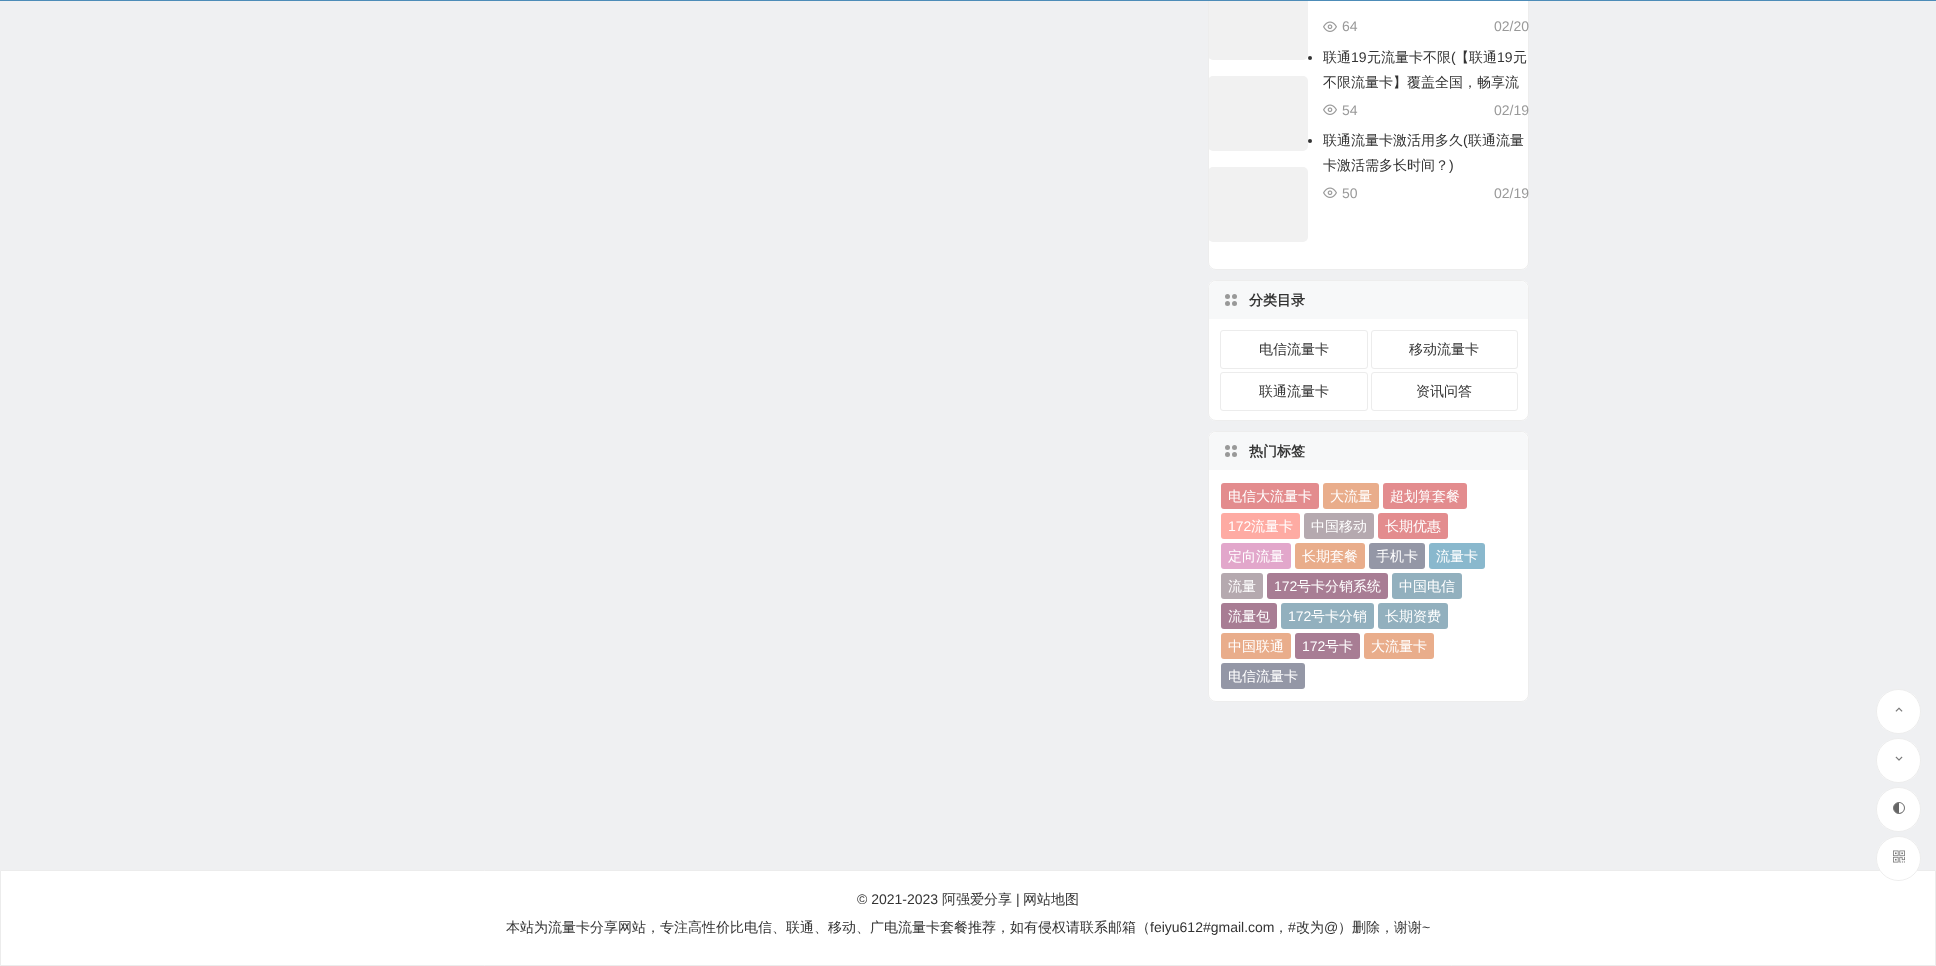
(async () => {
const canvas = document.querySelector("canvas")
canvas.width = 1936
canvas.height = 966
const c = canvas.getContext("2d")
c.miterLimit = 4
c.fontKerning = "normal"
function T(s,x,y){c.fillText(s,x,y)}
function R(x,y,w,h){c.fillRect(x,y,w,h)}
function Q(x,y,w,h,r){c.beginPath();c.roundRect(x,y,w,h,r);c.fill()}
async function I(src,x,y,w,h){const img=new Image();img.src=src;await img.decode();c.drawImage(img,x,y,w,h)}
c.fillStyle="#eff0f2"
R(0,0,1936,966)
c.fillStyle="#fff"
Q(1208,-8,321,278,8)
c.beginPath()
c.roundRect(1208.5,-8.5,320,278,7.5)
c.strokeStyle="#00000012"
c.stroke()
c.fillStyle="#4d8cb8"
R(0,0,1936,1)
await I("1.png",1209,1,99,59)
await I("2.png",1323,21,14,11)
c.font="14px Liberation Sans"
c.fillStyle="#999"
T("64",1342,31)
T("02/20",1494,31)
c.fillStyle="#333"
c.beginPath()
c.arc(1310,58,2,0,7)
c.fill()
c.font="500 14px WenQuanYi Zen Hei"
T("联通",1323,62)
c.font="14px Liberation Sans"
T("19",1351,62)
c.font="500 14px WenQuanYi Zen Hei"
T("元流量卡不限",1367,62)
c.font="14px Liberation Sans"
T("(",1451,62)
c.font="500 14px WenQuanYi Zen Hei"
T("【联通",1455,62)
c.font="14px Liberation Sans"
T("19",1497,62)
c.font="500 14px WenQuanYi Zen Hei"
T("元",1513,62)
T("不限流量卡】覆盖全国，畅享流",1323,87)
await I("3.png",1209,76,99,75)
await I("2.png",1323,104,14,11)
c.font="14px Liberation Sans"
c.fillStyle="#999"
T("54",1342,115)
T("02/19",1494,115)
c.fillStyle="#333"
c.beginPath()
c.arc(1310,141,2,0,7)
c.fill()
c.font="500 14px WenQuanYi Zen Hei"
T("联通流量卡激活用多久",1323,145)
c.font="14px Liberation Sans"
T("(",1463,145)
c.font="500 14px WenQuanYi Zen Hei"
T("联通流量",1468,145)
T("卡激活需多长时间？",1323,170)
c.font="14px Liberation Sans"
T(")",1449,170)
await I("3.png",1209,167,99,75)
await I("2.png",1323,187,14,11)
c.fillStyle="#999"
T("50",1342,198)
T("02/19",1494,198)
c.fillStyle="#fff"
Q(1208,280,321,141,8)
c.beginPath()
c.roundRect(1208.5,280.5,320,140,7.5)
c.stroke()
c.fillStyle="#f7f8f9"
c.beginPath()
c.roundRect(1209,281,319,38,[8,8,0,0])
c.fill()
c.fillStyle="#999"
c.beginPath()
c.arc(1227.5,296.5,2.5,0,7)
c.fill()
c.beginPath()
c.arc(1234.5,296.5,2.5,0,7)
c.fill()
c.beginPath()
c.arc(1227.5,303.5,2.5,0,7)
c.fill()
c.beginPath()
c.arc(1234.5,303.5,2.5,0,7)
c.fill()
c.font="bold 14px WenQuanYi Zen Hei"
c.fillStyle="#333"
T("分类目录",1249,305)
c.beginPath()
c.roundRect(1220.5,330.5,147,38,2.5)
c.strokeStyle="#ececec"
c.stroke()
c.font="500 14px WenQuanYi Zen Hei"
T("电信流量卡",1259,354)
c.beginPath()
c.roundRect(1371.5,330.5,146,38,2.5)
c.stroke()
T("移动流量卡",1409,354)
c.beginPath()
c.roundRect(1220.5,372.5,147,38,2.5)
c.stroke()
T("联通流量卡",1259,396)
c.beginPath()
c.roundRect(1371.5,372.5,146,38,2.5)
c.stroke()
T("资讯问答",1416,396)
c.fillStyle="#fff"
Q(1208,431,321,271,8)
c.beginPath()
c.roundRect(1208.5,431.5,320,270,7.5)
c.strokeStyle="#00000012"
c.stroke()
c.fillStyle="#f7f8f9"
c.beginPath()
c.roundRect(1209,432,319,38,[8,8,0,0])
c.fill()
c.fillStyle="#999"
c.beginPath()
c.arc(1227.5,447.5,2.5,0,7)
c.fill()
c.beginPath()
c.arc(1234.5,447.5,2.5,0,7)
c.fill()
c.beginPath()
c.arc(1227.5,454.5,2.5,0,7)
c.fill()
c.beginPath()
c.arc(1234.5,454.5,2.5,0,7)
c.fill()
c.font="bold 14px WenQuanYi Zen Hei"
c.fillStyle="#333"
T("热门标签",1249,456)
c.fillStyle="#e38c8e"
Q(1221,483,98,26,3)
c.font="500 14px WenQuanYi Zen Hei"
c.fillStyle="#fff"
T("电信大流量卡",1228,501)
c.fillStyle="#e9ad8b"
Q(1323,483,56,26,3)
c.fillStyle="#fff"
T("大流量",1330,501)
c.fillStyle="#e38c8e"
Q(1383,483,84,26,3)
c.fillStyle="#fff"
T("超划算套餐",1390,501)
c.fillStyle="#feaba3"
Q(1221,513,79,26,3)
c.font="14px Liberation Sans"
c.fillStyle="#fff"
T("172",1228,531)
c.font="500 14px WenQuanYi Zen Hei"
T("流量卡",1251,531)
c.fillStyle="#b5a9af"
Q(1304,513,70,26,3)
c.fillStyle="#fff"
T("中国移动",1311,531)
c.fillStyle="#e38c8e"
Q(1378,513,70,26,3)
c.fillStyle="#fff"
T("长期优惠",1385,531)
c.fillStyle="#e2a7cb"
Q(1221,543,70,26,3)
c.fillStyle="#fff"
T("定向流量",1228,561)
c.fillStyle="#e9ad8b"
Q(1295,543,70,26,3)
c.fillStyle="#fff"
T("长期套餐",1302,561)
c.fillStyle="#9497a6"
Q(1369,543,56,26,3)
c.fillStyle="#fff"
T("手机卡",1376,561)
c.fillStyle="#89b8cd"
Q(1429,543,56,26,3)
c.fillStyle="#fff"
T("流量卡",1436,561)
c.fillStyle="#b5a9af"
Q(1221,573,42,26,3)
c.fillStyle="#fff"
T("流量",1228,591)
c.fillStyle="#a87d94"
Q(1267,573,121,26,3)
c.font="14px Liberation Sans"
c.fillStyle="#fff"
T("172",1274,591)
c.font="500 14px WenQuanYi Zen Hei"
T("号卡分销系统",1297,591)
c.fillStyle="#92b0be"
Q(1392,573,70,26,3)
c.fillStyle="#fff"
T("中国电信",1399,591)
c.fillStyle="#a87d94"
Q(1221,603,56,26,3)
c.fillStyle="#fff"
T("流量包",1228,621)
c.fillStyle="#92b0be"
Q(1281,603,93,26,3)
c.font="14px Liberation Sans"
c.fillStyle="#fff"
T("172",1288,621)
c.font="500 14px WenQuanYi Zen Hei"
T("号卡分销",1311,621)
c.fillStyle="#92b0be"
Q(1378,603,70,26,3)
c.fillStyle="#fff"
T("长期资费",1385,621)
c.fillStyle="#e9ad8b"
Q(1221,633,70,26,3)
c.fillStyle="#fff"
T("中国联通",1228,651)
c.fillStyle="#a87d94"
Q(1295,633,65,26,3)
c.font="14px Liberation Sans"
c.fillStyle="#fff"
T("172",1302,651)
c.font="500 14px WenQuanYi Zen Hei"
T("号卡",1325,651)
c.fillStyle="#e9ad8b"
Q(1364,633,70,26,3)
c.fillStyle="#fff"
T("大流量卡",1371,651)
c.fillStyle="#9497a6"
Q(1221,663,84,26,3)
c.fillStyle="#fff"
T("电信流量卡",1228,681)
c.beginPath()
c.rect(.5,870.5,1935,95)
c.fill()
c.strokeStyle="#ececec"
c.stroke()
c.beginPath()
c.arc(1898.5,711.5,22.5,0,7)
c.fill()
c.beginPath()
c.arc(1898.5,711.5,22,0,7)
c.strokeStyle="#00000012"
c.stroke()
await I("4.png",1895,707,8,5)
c.beginPath()
c.arc(1898.5,760.5,22.5,0,7)
c.fill()
c.beginPath()
c.arc(1898.5,760.5,22,0,7)
c.stroke()
await I("5.png",1895,756,8,5)
c.beginPath()
c.arc(1898.5,809.5,22.5,0,7)
c.fill()
c.beginPath()
c.arc(1898.5,809.5,22,0,7)
c.stroke()
c.fillStyle="#666"
c.beginPath()
c.arc(1899,808,5.5,0,7)
c.fill()
c.strokeStyle="#777"
c.stroke()
c.fillStyle="#fff"
c.beginPath()
c.roundRect(1899,803,5,10,[0,5,5,0])
c.fill()
c.beginPath()
c.arc(1898.5,858.5,22.5,0,7)
c.fill()
c.beginPath()
c.arc(1898.5,858.5,22,0,7)
c.strokeStyle="#00000012"
c.stroke()
await I("6.png",1893,850,12,13)
c.font="14px Liberation Sans"
c.fillStyle="#333"
T("© 2021-2023",857,904)
c.font="500 14px WenQuanYi Zen Hei"
T("阿强爱分享",942,904)
c.font="14px Liberation Sans"
T("|",1016,904)
c.font="500 14px WenQuanYi Zen Hei"
T("网站地图",1023,904)
T("本站为流量卡分享网站，专注高性价比电信、联通、移动、广电流量卡套餐推荐，如有侵权请联系邮箱（",506,932)
c.font="14px Liberation Sans"
T("feiyu612#gmail.com",1150,932)
T("#",1288,932)
c.font="500 14px WenQuanYi Zen Hei"
T("改为",1296,932)
c.font="14px Liberation Sans"
T("@",1324,932)
c.font="500 14px WenQuanYi Zen Hei"
T("）删除，谢谢",1338,932)
c.font="14px Liberation Sans"
T("~",1422,932)
c.font="500 14px WenQuanYi Zen Hei"
T("，",1274,932)
})()
